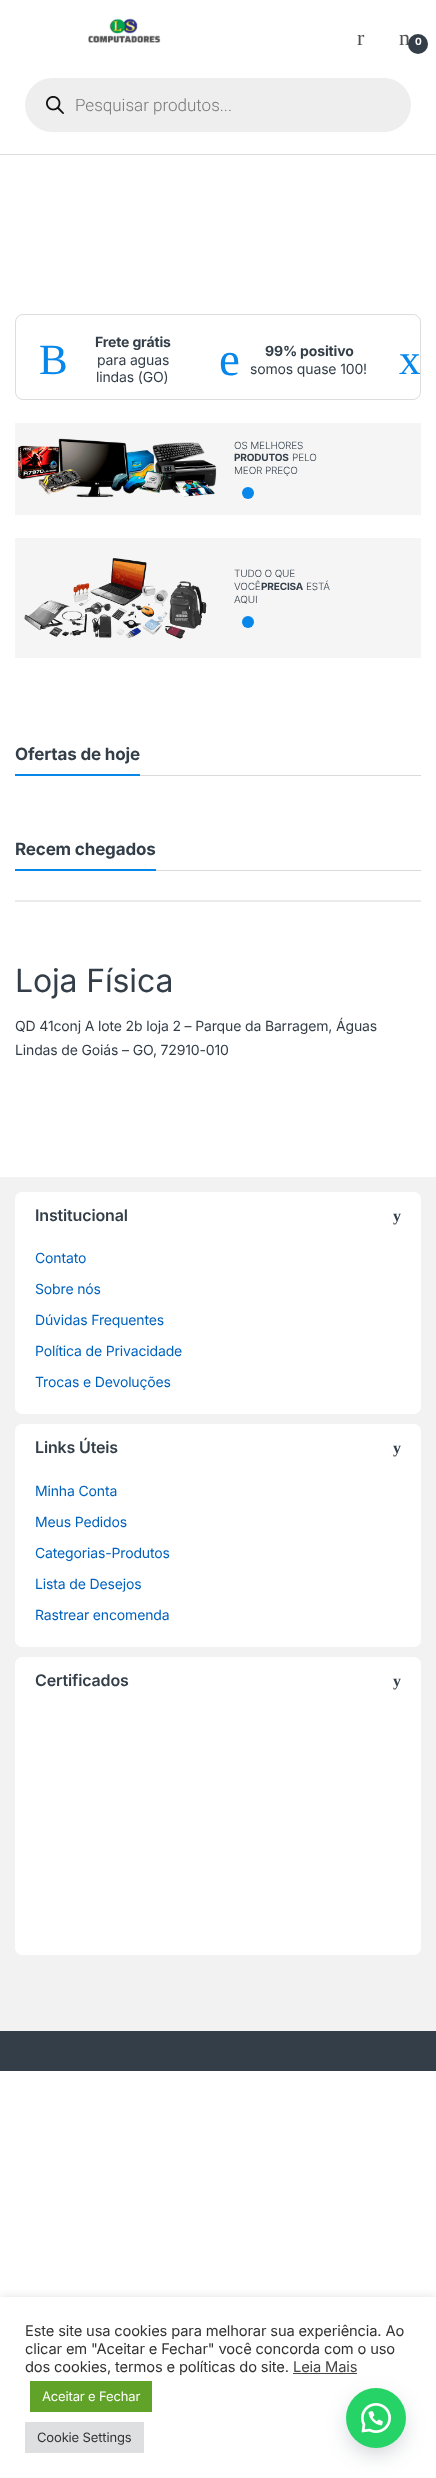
(async () => {
const canvas = document.querySelector("canvas")
canvas.width = 436
canvas.height = 2478
const c = canvas.getContext("2d")
c.miterLimit = 4
c.fontKerning = "normal"
function T(s,x,y){c.fillText(s,x,y)}
function R(x,y,w,h){c.fillRect(x,y,w,h)}
function Q(x,y,w,h,r){c.beginPath();c.roundRect(x,y,w,h,r);c.fill()}
async function I(src,x,y,w,h){const img=new Image();img.src=src;await img.decode();c.drawImage(img,x,y,w,h)}
c.fillStyle="#fff"
R(0,0,436,2478)
c.fillStyle="#ddd"
R(0,154,436,1)
await I("1.png",88,18,73,25)
c.letterSpacing="-0.15px"
c.font="22px Liberation Serif"
c.fillStyle="#515151"
T("r",357,45)
T("n",399,45)
c.fillStyle="#333e48"
c.beginPath()
c.arc(418,44,10,0,7)
c.fill()
c.font="bold 10px Inter"
c.fillStyle="#fff"
T("0",415,45)
c.fillStyle="#eee"
Q(25,78,386,54,27)
await I("2.png",46,96,18,18)
c.letterSpacing="0px"
c.font="300 17px Roboto"
c.fillStyle="#777"
T("Pesquisar produtos...",75,111)
c.beginPath()
c.roundRect(15.5,314.5,405,85,7.5)
c.strokeStyle="#ddd"
c.stroke()
c.letterSpacing="-0.15px"
c.font="43px Liberation Serif"
c.fillStyle="#0787ea"
T("B",39,374)
c.font="bold 14px Inter"
c.fillStyle="#333e48"
T("Frete grátis",95,347)
c.font="14px Inter"
T("para aguas",97,365)
T("lindas (GO)",96,382)
c.font="47px Liberation Serif"
c.fillStyle="#0787ea"
T("e",219,375)
c.font="bold 14px Inter"
c.fillStyle="#333e48"
T("99% positivo",265,356)
c.font="14px Inter"
T("somos quase 100!",250,374)
c.font="43px Liberation Serif"
c.fillStyle="#0787ea"
T("x",399,374)
c.fillStyle="#f5f5f5"
R(15,423,406,92)
await I("3.png",18,438,199,60)
c.font="300 10px Inter"
c.fillStyle="#333e48"
T("OS MELHORES",234,449)
c.font="bold 10px Inter"
T("PRODUTOS",234,461)
c.font="300 10px Inter"
T("PELO",292,461)
T("MEOR PREÇO",234,474)
c.fillStyle="#0787ea"
c.beginPath()
c.arc(248,493,6,0,7)
c.fill()
c.fillStyle="#f5f5f5"
R(15,538,406,120)
await I("4.png",24,558,183,81)
c.fillStyle="#333e48"
T("TUDO O QUE",234,577)
T("VOCÊ",234,590)
c.font="bold 10px Inter"
T("PRECISA",261,590)
c.font="300 10px Inter"
T("ESTÁ",306,590)
T("AQUI",234,603)
c.fillStyle="#0787ea"
c.beginPath()
c.arc(248,622,6,0,7)
c.fill()
c.fillStyle="#dadada"
R(140,775,281,1)
c.font="bold 17px Inter"
c.fillStyle="#333e48"
T("Ofertas de hoje",15,760)
c.fillStyle="#0787ea"
R(15,774,125,2)
c.fillStyle="#dadada"
R(156,870,265,1)
c.fillStyle="#333e48"
T("Recem chegados",15,855)
c.fillStyle="#0787ea"
R(15,869,141,2)
c.fillStyle="#ebebeb"
R(15,900,406,2)
c.font="32px Inter"
c.fillStyle="#333e48"
T("Loja Física",15,992)
c.font="14px Inter"
T("QD 41conj A lote 2b loja 2 – Parque da Barragem, Águas",15,1031)
T("Lindas de Goiás – GO, 72910-010",15,1055)
c.fillStyle="#f2f2f2"
R(0,1177,436,854)
c.fillStyle="#fff"
Q(15,1192,406,222,7)
c.font="600 16px Inter"
c.fillStyle="#333e48"
T("Institucional",35,1221)
c.font="bold 16px Liberation Serif"
T("y",393,1221)
c.font="14px Inter"
c.fillStyle="#0062bd"
T("Contato",35,1263)
T("Sobre nós",35,1294)
T("Dúvidas Frequentes",35,1325)
T("Política de Privacidade",35,1356)
T("Trocas e Devoluções",35,1387)
c.fillStyle="#fff"
Q(15,1424,406,223,7)
c.font="600 16px Inter"
c.fillStyle="#333e48"
T("Links Úteis",35,1453)
c.font="bold 16px Liberation Serif"
T("y",393,1453)
c.font="14px Inter"
c.fillStyle="#0062bd"
T("Minha Conta",35,1496)
T("Meus Pedidos",35,1527)
T("Categorias-Produtos",35,1558)
T("Lista de Desejos",35,1589)
T("Rastrear encomenda",35,1620)
c.fillStyle="#fff"
Q(15,1657,406,298,7)
c.font="600 16px Inter"
c.fillStyle="#333e48"
T("Certificados",35,1686)
c.font="bold 16px Liberation Serif"
T("y",393,1686)
R(0,2031,436,40)
c.save()
c.beginPath()
c.rect(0,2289,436,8)
c.clip()
c.fillStyle="#acabab4d"
c.filter="blur(5px)"
c.beginPath()
c.rect(0,2296,436,181)
c.fill()
c.filter="none"
c.restore()
c.font="14.7px Inter"
c.fillStyle="#333"
T("Este site usa cookies para melhorar sua experiência. Ao",25,2336)
T("clicar em \"Aceitar e Fechar\" você concorda com o uso",25,2354)
T("dos cookies, termos e políticas do site.",25,2372)
c.fillStyle="#444"
T("Leia Mais",293,2372)
R(293,2373,64,1)
c.fillStyle="#61a229"
R(30,2381,122,31)
c.font="13px Inter"
c.fillStyle="#fff"
T("Aceitar e Fechar",42,2401)
c.fillStyle="#dedfe0"
R(25,2422,119,31)
c.fillStyle="#333"
T("Cookie Settings",37,2442)
c.fillStyle="#2d3e4f4d"
c.filter="blur(12.5px)"
c.beginPath()
c.roundRect(351,2401,50,50,25)
c.fill()
c.filter="none"
c.fillStyle="#25d366"
c.beginPath()
c.arc(376,2418,30,0,7)
c.fill()
await I("5.png",361,2403,30,30)
})()
